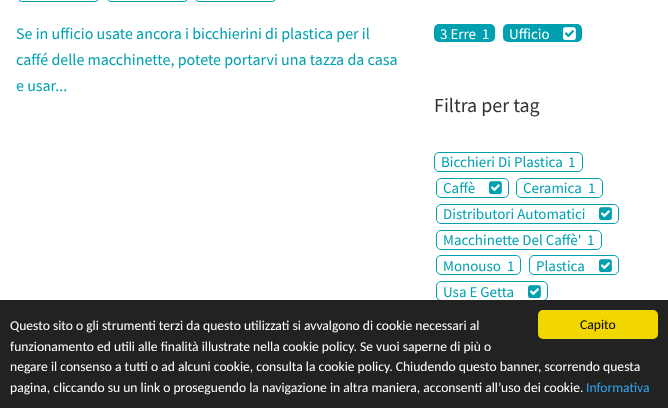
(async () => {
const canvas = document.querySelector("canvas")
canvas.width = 668
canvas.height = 408
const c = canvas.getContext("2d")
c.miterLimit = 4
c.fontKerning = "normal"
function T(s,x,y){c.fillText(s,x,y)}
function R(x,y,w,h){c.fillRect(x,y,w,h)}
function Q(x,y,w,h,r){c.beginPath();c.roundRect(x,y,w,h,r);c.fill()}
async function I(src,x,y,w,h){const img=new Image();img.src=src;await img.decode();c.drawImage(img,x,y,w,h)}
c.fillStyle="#fff"
R(0,0,668,408)
c.beginPath()
c.roundRect(18.5,-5.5,80,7,4.5)
c.strokeStyle="#00a0b0"
c.stroke()
c.beginPath()
c.roundRect(107.5,-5.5,80,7,4.5)
c.stroke()
c.beginPath()
c.roundRect(195.5,-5.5,80,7,4.5)
c.stroke()
c.font="16px Source Sans Pro"
c.fillStyle="#00a0b0"
T("Se in ufficio usate ancora i bicchierini di plastica per il",16,39)
T("caffé delle macchinette, potete portarvi una tazza da casa",16,65)
T("e usar...",16,91)
Q(434,24,61,18,5)
c.font="15px Source Sans Pro"
c.fillStyle="#fff"
T("3 Erre",440,39)
T("1",482,39)
c.fillStyle="#00a0b0"
Q(503,24,79,18,5)
c.fillStyle="#fff"
T("Ufficio",509,39)
await I("1.png",563,27,13,14)
c.font="20px Source Sans Pro"
c.fillStyle="#353036"
T("Filtra per tag",434,112)
c.beginPath()
c.roundRect(434.5,152.5,148,19,4.5)
c.stroke()
c.font="15px Source Sans Pro"
c.fillStyle="#00a0b0"
T("Bicchieri Di Plastica",441,167)
T("1",568,167)
c.beginPath()
c.roundRect(436.5,178.5,72,19,4.5)
c.stroke()
T("Caffè",443,193)
await I("2.png",489,181,13,14)
c.beginPath()
c.roundRect(516.5,178.5,86,19,4.5)
c.stroke()
T("Ceramica",523,193)
T("1",588,193)
c.beginPath()
c.roundRect(436.5,204.5,182,19,4.5)
c.stroke()
T("Distributori Automatici",443,219)
await I("2.png",599,207,13,14)
c.beginPath()
c.roundRect(436.5,230.5,165,19,4.5)
c.stroke()
T("Macchinette Del Caffè'",443,245)
T("1",587,245)
c.beginPath()
c.roundRect(436.5,255.5,84,19,4.5)
c.stroke()
T("Monouso",443,271)
T("1",507,271)
c.beginPath()
c.roundRect(529.5,255.5,89,19,4.5)
c.stroke()
T("Plastica",536,271)
await I("2.png",599,259,13,14)
c.beginPath()
c.roundRect(436.5,281.5,111,19,4.5)
c.stroke()
T("Usa E Getta",443,297)
await I("2.png",528,285,13,14)
c.fillStyle="#222"
R(0,300,668,108)
c.fillStyle="#f1d600"
Q(538,310,120,29,5)
c.font="13.6px Carlito"
c.fillStyle="#000"
T("Capito",580,329)
c.fillStyle="#fff"
T("Questo sito o gli strumenti terzi da questo utilizzati si avvalgono di cookie necessari al",10,330)
T("funzionamento ed utili alle finalità illustrate nella cookie policy. Se vuoi saperne di più o",10,351)
T("negare il consenso a tutti o ad alcuni cookie, consulta la cookie policy. Chiudendo questo banner, scorrendo questa",10,371)
T("pagina, cliccando su un link o proseguendo la navigazione in altra maniera, acconsenti all’uso dei cookie.",10,392)
c.fillStyle="#31a8f0"
T("Informativa",586,392)
})()
